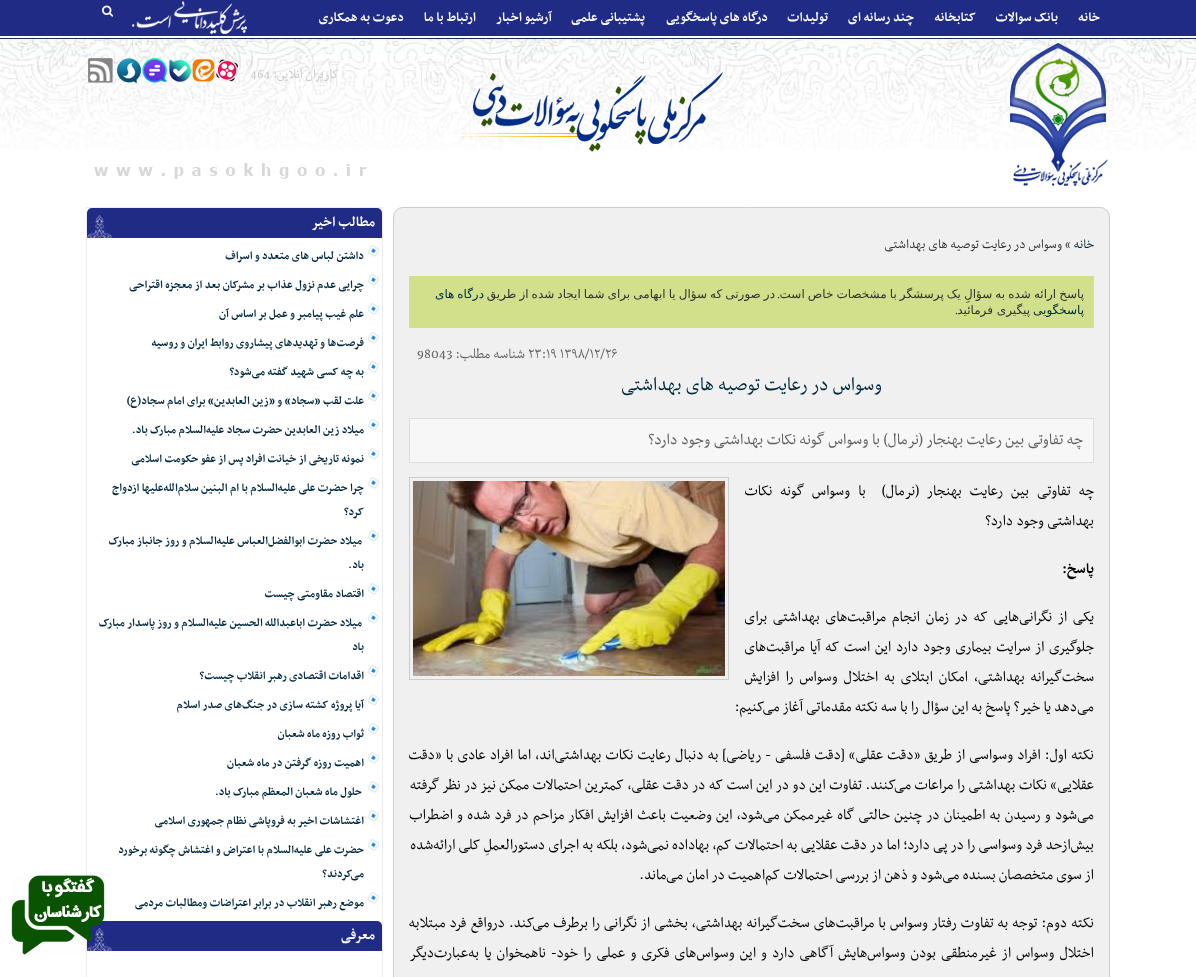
(async () => {
const canvas = document.querySelector("canvas")
canvas.width = 1196
canvas.height = 977
const c = canvas.getContext("2d")
c.miterLimit = 4
c.fontKerning = "normal"
function T(s,x,y){c.fillText(s,x,y)}
function R(x,y,w,h){c.fillRect(x,y,w,h)}
async function I(src,x,y,w,h){const img=new Image();img.src=src;await img.decode();c.drawImage(img,x,y,w,h)}
c.fillStyle="#fff"
R(0,0,1196,977)
c.fillStyle="#202b86"
R(0,0,1196,36)
c.direction="rtl"
c.font="bold 15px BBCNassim"
c.fillStyle="#fff"
T("خانه",1100,21)
T("بانک سوالات",1058,21)
T("کتابخانه",976,21)
T("چند رسانه ای",914,21)
T("تولیدات",828,21)
T("درگاه های پاسخگویی",768,21)
T("پشتیبانی علمی",645,21)
T("آرشیو اخبار",552,21)
T("ارتباط با ما",476,21)
T("دعوت به همکاری",404,21)
await I("1.png",132,1,115,33)
await I("2.png",102,5,12,12)
await I("3.png",0,38,1196,112)
await I("4.png",94,43,1014,143)
c.font="15px BBCNassim"
c.fillStyle="#c8cacb"
T("کاربران آنلاین:",339,78)
c.direction="ltr"
T("464",250,78)
await I("5.png",117,58,121,25)
await I("6.png",88,58,25,25)
c.fillStyle="#f0f0f0"
c.beginPath()
c.roundRect(393.5,207.5,716,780,9.5)
c.fill()
c.strokeStyle="#ccc"
c.stroke()
c.direction="rtl"
c.fillStyle="#00293f"
T("خانه",1094,248)
c.fillStyle="#333"
T("» وسواس در رعایت توصیه های بهداشتی",1071,248)
c.fillStyle="#d2df8b"
R(409,276,685,52)
c.wordSpacing="-0.75px"
c.font="12px DejaVu Sans"
c.fillStyle="#333"
T("در صورتی که سؤال یا ابهامی برای شما ایجاد شده از طریق",775,298)
T("پاسخ ارائه شده به سؤالِ یک پرسشگر با مشخصات خاص است",1084,298)
c.wordSpacing="-1px"
c.fillStyle="#00293f"
T("درگاه های",484,298)
c.wordSpacing="0px"
c.font="12px Liberation Serif"
c.fillStyle="#333"
T(".",780,298)
c.font="12px DejaVu Sans"
c.fillStyle="#00293f"
T("پاسخگویی",1084,314)
c.fillStyle="#333"
T("پیگیری فرمائید",1030,314)
c.font="12px Liberation Serif"
T(".",958,314)
c.direction="ltr"
c.font="16px BBCNassim"
c.fillStyle="#666"
T("۲۳:۱۹ ۱۳۹۸/۱۲/۲۶",528,358)
c.direction="rtl"
T("شناسه مطلب:",525,358)
c.direction="ltr"
T("98043",417,358)
c.direction="rtl"
c.font="22px BBCNassim"
c.fillStyle="#00293f"
T("وسواس در رعایت توصیه های بهداشتی",882,390)
c.fillStyle="#f7f7f7"
c.beginPath()
c.rect(409.5,418.5,684,44)
c.fill()
c.strokeStyle="#ddd"
c.stroke()
c.font="18px BBCNassim"
c.fillStyle="#606060"
T("چه تفاوتی بین رعایت بهنجار (نرمال)",1083,444)
T("با وسواس گونه نکات بهداشتی وجود دارد؟",880,444)
c.wordSpacing="4.75px"
c.font="17px BBCNassim"
c.fillStyle="#000"
T("چه تفاوتی بین رعایت بهنجار (نرمال)  با وسواس گونه نکات",1094,495)
c.wordSpacing="0px"
T("بهداشتی وجود دارد؟",1094,525)
c.strokeStyle="#ccc"
c.strokeRect(409.5,477.5,319,202)
await I("7.png",413,481,312,195)
c.font="bold 17px BBCNassim"
T("پاسخ:",1094,573)
c.wordSpacing="2.5px"
c.font="17px BBCNassim"
T("یکی از نگرانی‌هایی که در زمان انجام مراقبت‌های بهداشتی برای",1094,621)
c.wordSpacing="1.5px"
T("جلوگیری از سرایت بیماری وجود دارد این است که آیا مراقبت‌های",1094,651)
c.wordSpacing="2.75px"
T("سخت‌گیرانه بهداشتی، امکان ابتلای به اختلال وسواس را افزایش",1094,681)
c.wordSpacing="0px"
T("می‌دهد یا خیر؟ پاسخ به این سؤال را با سه نکته مقدماتی آغاز می‌کنیم:",1094,711)
c.wordSpacing="0.9px"
T("نکته اول: افراد وسواسی از طریق «دقت عقلی» [دقت فلسفی - ریاضی] به دنبال رعایت نکات بهداشتی‌اند، اما افراد عادی با «دقت",1094,759)
c.wordSpacing="0.3px"
T("عقلایی» نکات بهداشتی را مراعات می‌کنند. تفاوت این دو در این است که در دقت عقلی، کمترین احتمالات ممکن نیز در نظر گرفته",1094,789)
c.wordSpacing="1.1px"
T("می‌شود و رسیدن به اطمینان در چنین حالتی گاه غیرممکن می‌شود، این وضعیت باعث افزایش افکار مزاحم در فرد شده و اضطراب",1094,819)
c.wordSpacing="0px"
T("بیش‌ازحد فرد وسواسی را در پی دارد؛ اما در دقت عقلایی به احتمالات کم، بهاداده نمی‌شود، بلکه به اجرای دستورالعملِ کلی ارائه‌شده",1094,849)
T("از سوی متخصصان بسنده می‌شود و ذهن از بررسی احتمالات کم‌اهمیت در امان می‌ماند.",1094,879)
c.wordSpacing="0.7px"
T("نکته دوم: توجه به تفاوت رفتار وسواس با مراقبت‌های سخت‌گیرانه بهداشتی، بخشی از نگرانی را برطرف می‌کند. درواقع فرد مبتلابه",1094,927)
c.wordSpacing="1.9px"
T("اختلال وسواس از غیرمنطقی بودن وسواس‌هایش آگاهی دارد و این وسواس‌های فکری و عملی را خود- ناهمخوان یا به‌عبارت‌دیگر",1094,957)
c.strokeStyle="#eeecec"
c.strokeRect(86.5,207.5,296,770)
c.fillStyle="#202b86"
c.beginPath()
c.roundRect(87,208,295,30,[5,5,0,0])
c.fill()
await I("8.png",87,215,25,23)
c.wordSpacing="0px"
c.font="bold 16px BBCNassim"
c.fillStyle="#fff"
T("مطالب اخیر",375,226)
await I("9.png",368,245,11,12)
c.font="bold 13px BBCNassim"
c.fillStyle="#00293f"
T("داشتن لباس های متعدد و اسراف",364,259)
await I("9.png",368,274,11,12)
T("چرایی عدم نزول عذاب بر مشرکان بعد از معجزه اقتراحی",364,288)
await I("9.png",368,303,11,12)
T("علم غیب پیامبر و عمل بر اساس آن",364,317)
await I("9.png",368,332,11,12)
T("فرصت‌ها و تهدیدهای پیشاروی روابط ایران و روسیه",364,346)
await I("9.png",368,361,11,12)
T("به چه کسی شهید گفته می‌شود؟",364,375)
await I("9.png",368,390,11,12)
T("علت لقب «سجاد» و «زین العابدین» برای امام سجاد(ع)",364,404)
await I("9.png",368,419,11,12)
T("میلاد زین العابدین حضرت سجاد علیه‌السلام مبارک باد.",364,433)
await I("9.png",368,448,11,12)
T("نمونه تاریخی از خیانت افراد پس از عفو حکومت اسلامی",364,462)
await I("9.png",368,477,11,12)
T("چرا حضرت علی علیه‌السلام با ام البنین سلام‌الله‌علیها ازدواج",364,491)
T("کرد؟",364,515)
await I("9.png",368,530,11,12)
T("میلاد حضرت ابوالفضل‌العباس علیه‌السلام و روز جانباز مبارک",362,544)
T("باد.",364,568)
await I("9.png",368,583,11,12)
T("اقتصاد مقاومتی چیست",364,597)
await I("9.png",368,612,11,12)
T("میلاد حضرت اباعبدالله الحسین علیه‌السلام و روز پاسدار مبارک",362,626)
T("باد",364,650)
await I("9.png",368,665,11,12)
T("اقدامات اقتصادی رهبر انقلاب چیست؟",364,679)
await I("9.png",368,694,11,12)
T("آیا پروژه کشته سازی در جنگ‌های صدر اسلام",364,708)
await I("9.png",368,723,11,12)
T("ثواب روزه ماه شعبان",364,737)
await I("9.png",368,752,11,12)
T("اهمیت روزه گرفتن در ماه شعبان",364,766)
await I("9.png",368,781,11,12)
T("حلول ماه شعبان المعظم مبارک باد.",362,795)
await I("9.png",368,810,11,12)
T("اغتشاشات اخیر به فروپاشی نظام جمهوری اسلامی",364,824)
await I("9.png",368,839,11,12)
T("حضرت علی علیه‌السلام با اعتراض و اغتشاش چگونه برخورد",364,853)
T("می‌کردند؟",364,877)
await I("9.png",368,892,11,12)
T("موضع رهبر انقلاب در برابر اعتراضات و‌مطالبات مردمی",364,906)
c.fillStyle="#202b86"
c.beginPath()
c.roundRect(87,921,295,30,[5,5,0,0])
c.fill()
await I("8.png",87,928,25,23)
c.font="bold 16px BBCNassim"
c.fillStyle="#fff"
T("معرفی",375,939)
await I("10.png",11,875,94,80)
})()
